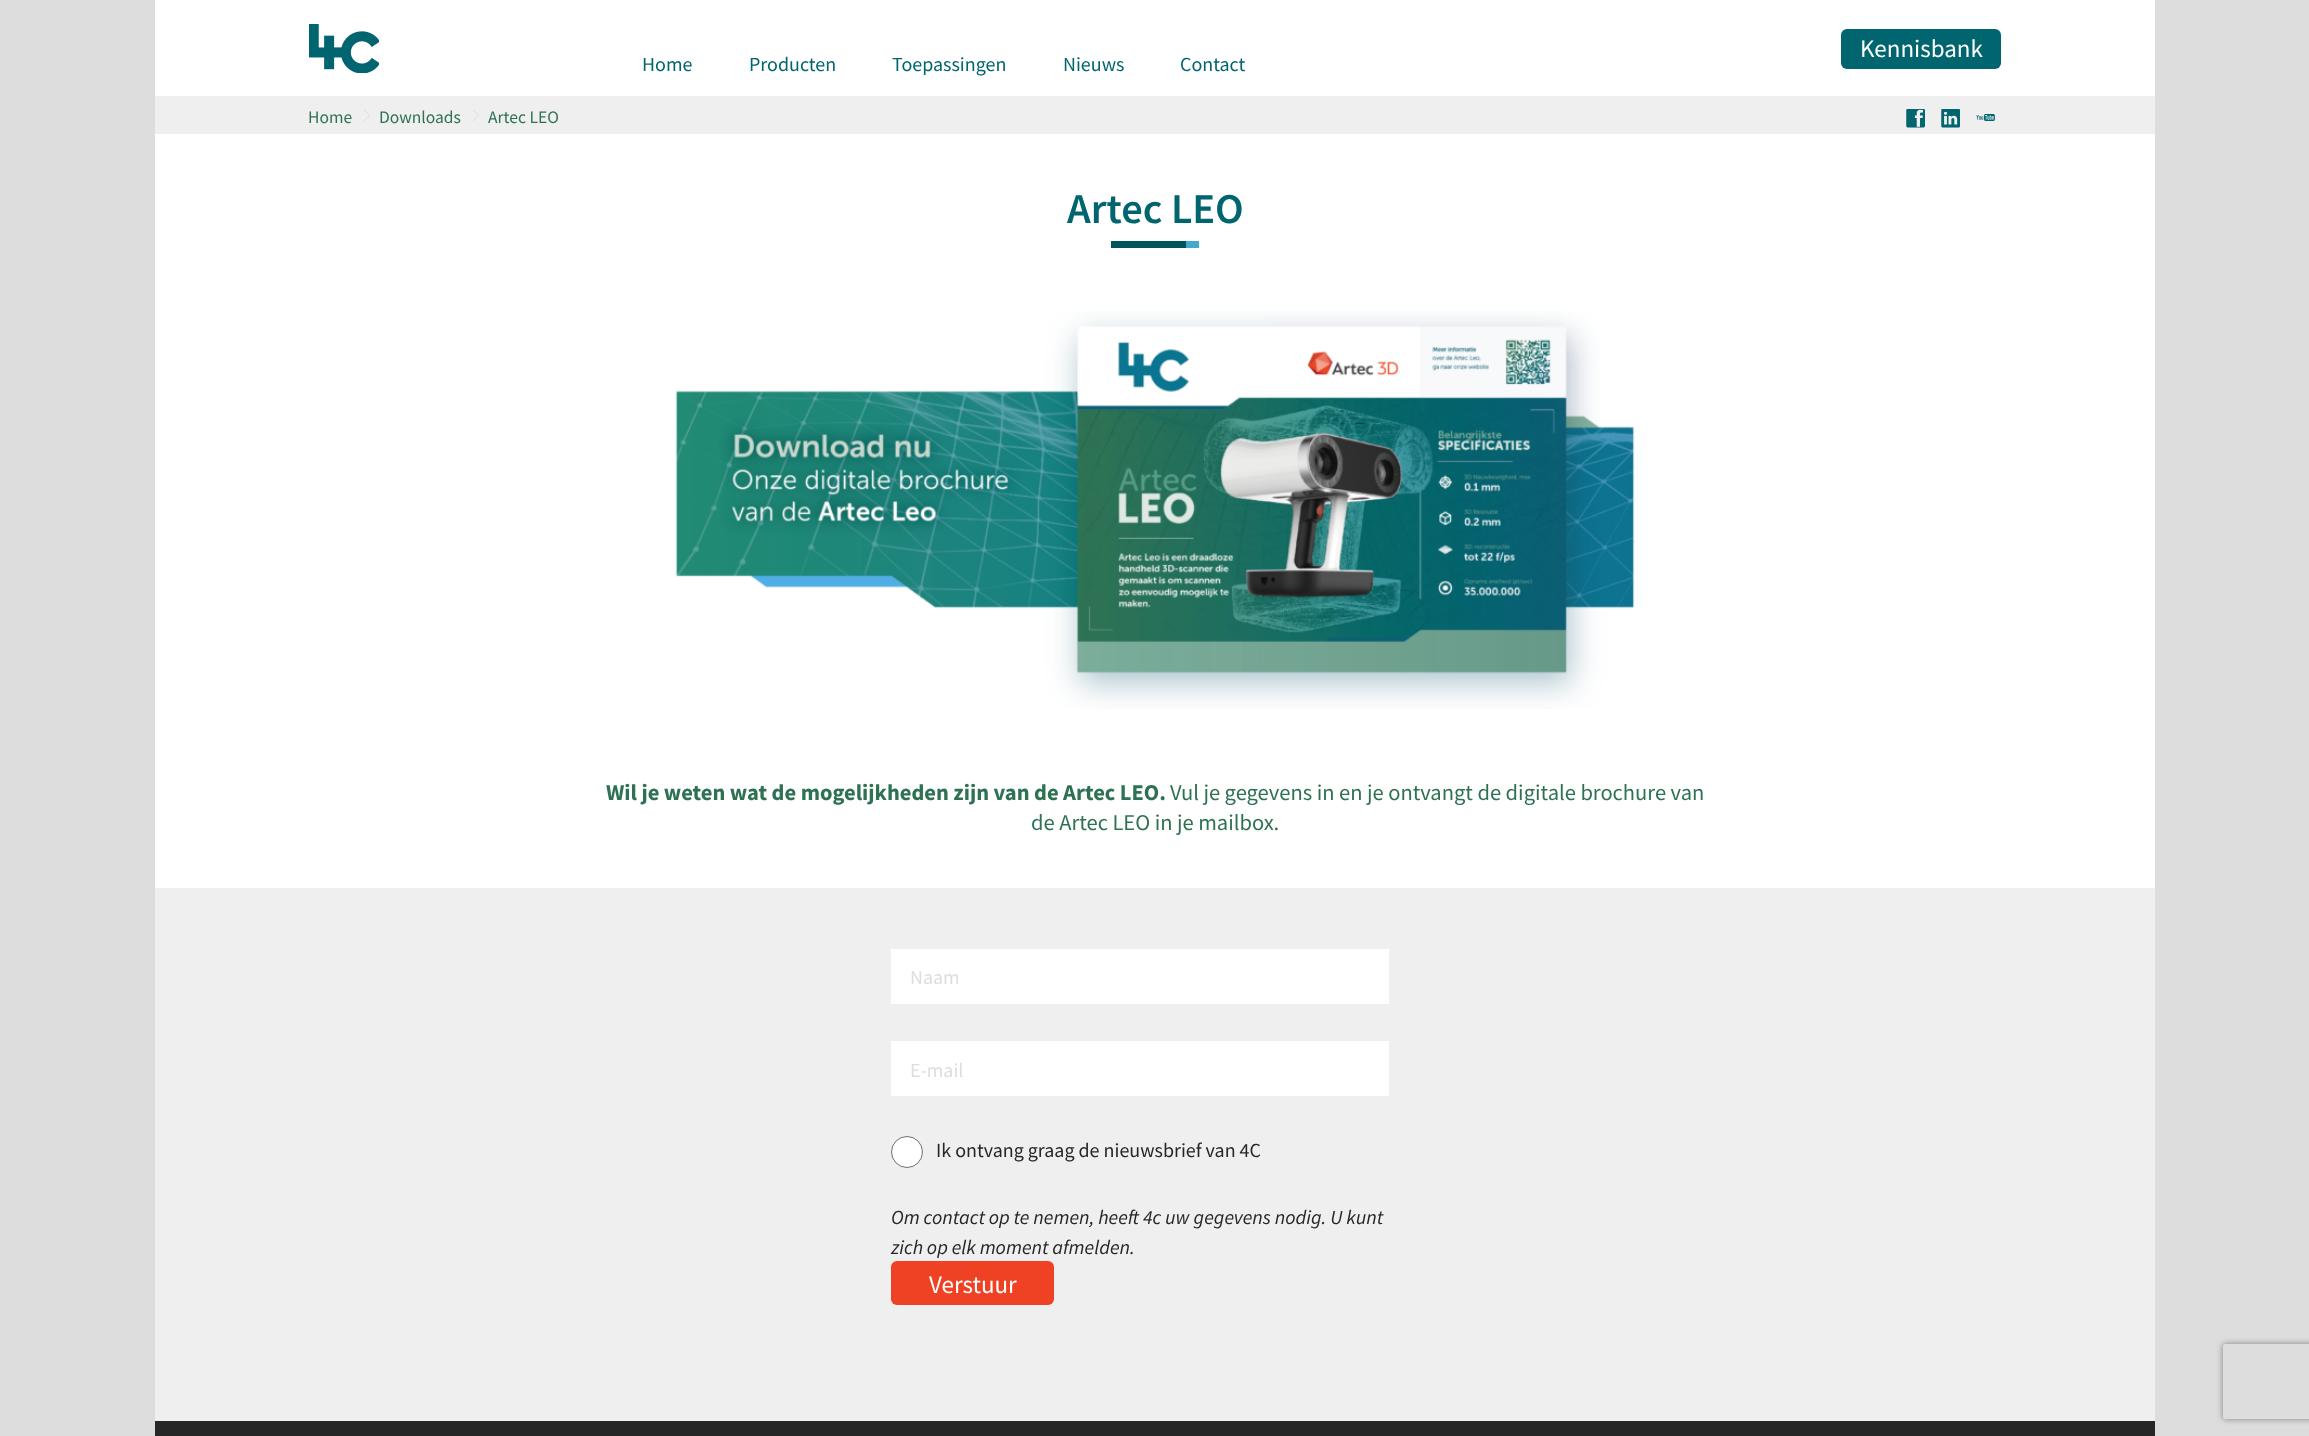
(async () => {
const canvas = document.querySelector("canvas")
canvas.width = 2309
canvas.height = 1436
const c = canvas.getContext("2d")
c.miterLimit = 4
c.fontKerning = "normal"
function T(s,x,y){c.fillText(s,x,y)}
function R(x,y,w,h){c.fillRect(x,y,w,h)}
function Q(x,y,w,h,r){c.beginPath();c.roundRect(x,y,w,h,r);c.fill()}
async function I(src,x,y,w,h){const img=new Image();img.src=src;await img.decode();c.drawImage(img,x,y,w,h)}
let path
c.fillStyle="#ddd"
R(0,0,2309,1436)
c.fillStyle="#fff"
R(155,0,2000,888)
await I("1.png",309,24,70,49)
c.fillStyle="#00656e"
Q(1841,29,160,40,6)
c.font="25px Source Sans Pro"
c.fillStyle="#fff"
T("Kennisbank",1860,57)
c.font="20px Source Sans Pro"
c.fillStyle="#00656e"
T("Home",642,71)
T("Producten",749,71)
T("Toepassingen",892,71)
T("Nieuws",1063,71)
T("Contact",1180,71)
c.fillStyle="#efeff0"
R(155,96,2000,38)
c.font="17.5px Source Sans Pro"
c.fillStyle="#2e7253"
T("Home",308,123)
path = new Path2D("M364 110l5.5 5.5l-5.5 5.5")
c.strokeStyle="#aeb0b3"
c.lineWidth=0.3
c.stroke(path)
T("Downloads",379,123)
path = new Path2D("M473 110l5.5 5.5l-5.5 5.5")
c.stroke(path)
T("Artec LEO",488,123)
await I("2.png",1906,109,19,19)
await I("3.png",1941,109,19,19)
await I("4.png",1976,114,19,7)
c.font="600 42.5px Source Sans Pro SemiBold"
c.fillStyle="#00656e"
T("Artec LEO",1067,223)
c.fillStyle="#00545c"
R(1111,241,75,7)
c.fillStyle="#44a9cd"
R(1186,241,13,7)
await I("5.png",675,311,960,398)
c.font="bold 22.5px Source Sans Pro"
c.fillStyle="#2e7253"
T("Wil je weten wat de mogelijkheden zijn van de Artec LEO.",606,800)
c.font="22.5px Source Sans Pro"
T("Vul je gegevens in en je ontvangt de digitale brochure van",1170,800)
T("de Artec LEO in je mailbox.",1031,830)
c.fillStyle="#efeff0"
R(155,888,2000,533)
c.fillStyle="#fff"
R(891,949,498,55)
c.font="20px Source Sans Pro"
c.fillStyle="#ddd"
T("Naam",910,984)
c.fillStyle="#fff"
R(891,1041,498,55)
c.fillStyle="#ddd"
T("E-mail",910,1077)
c.fillStyle="#fff"
c.beginPath()
c.arc(907,1152,15.5,0,7)
c.fill()
c.strokeStyle="#707070"
c.lineWidth=1
c.stroke()
c.fillStyle="#272626"
T("Ik ontvang graag de nieuwsbrief van 4C",936,1157)
c.font="italic 20px Source Sans Pro"
T("Om contact op te nemen, heeft 4c uw gegevens nodig. U kunt",891,1224)
T("zich op elk moment afmelden.",891,1254)
c.fillStyle="#ef4123"
Q(891,1261,163,44,6)
c.font="25px Source Sans Pro"
c.fillStyle="#fff"
T("Verstuur",929,1293)
c.fillStyle="#272626"
R(155,1421,2000,15)
c.save()
path = new Path2D("M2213 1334h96v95h-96zm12.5 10h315c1.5 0 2.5 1 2.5 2.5v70c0 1.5-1 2.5-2.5 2.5h-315c-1.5 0-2.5-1-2.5-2.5v-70c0-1.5 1-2.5 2.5-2.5z")
c.clip(path,"evenodd")
c.fillStyle="#808080"
c.filter="blur(3px)"
c.beginPath()
c.roundRect(2223,1344,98,75,2.5)
c.fill()
c.filter="none"
c.restore()
})()
